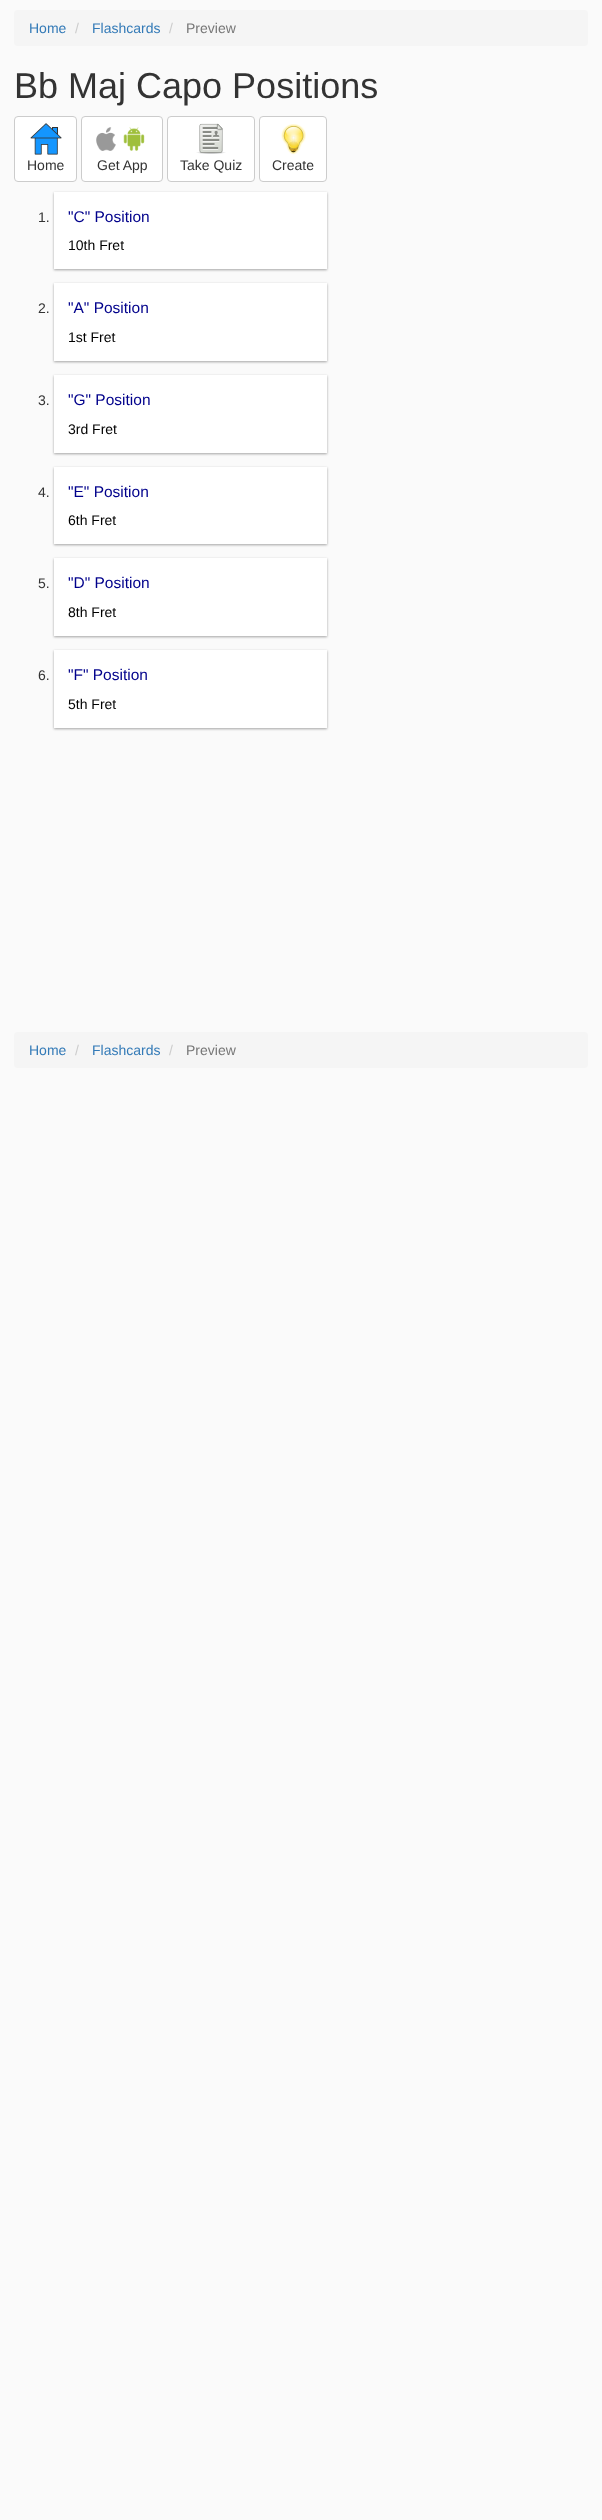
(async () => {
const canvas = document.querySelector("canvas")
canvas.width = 602
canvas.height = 2520
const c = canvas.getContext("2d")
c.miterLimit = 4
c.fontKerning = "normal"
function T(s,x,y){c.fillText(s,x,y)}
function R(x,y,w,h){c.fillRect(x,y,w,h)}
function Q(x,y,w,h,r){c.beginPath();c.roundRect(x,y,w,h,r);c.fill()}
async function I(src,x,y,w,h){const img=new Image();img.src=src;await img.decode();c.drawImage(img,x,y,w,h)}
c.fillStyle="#fafafa"
R(0,0,602,2520)
c.fillStyle="#f5f5f5"
Q(14,10,574,36,4)
c.font="14px Liberation Sans"
c.fillStyle="#337ab7"
T("Home",29,33)
c.fillStyle="#ccc"
T("/",75,33)
c.fillStyle="#337ab7"
T("Flashcards",92,33)
c.fillStyle="#ccc"
T("/",169,33)
c.fillStyle="#777"
T("Preview",186,33)
c.font="36px Liberation Sans"
c.fillStyle="#333"
T("Bb Maj Capo Positions",14,98)
c.fillStyle="#fff"
c.beginPath()
c.roundRect(14.5,116.5,62,65,3.5)
c.fill()
c.strokeStyle="#ccc"
c.stroke()
await I("1.png",30,123,32,32)
c.font="14px Liberation Sans"
c.fillStyle="#333"
T("Home",27,170)
c.fillStyle="#fff"
c.beginPath()
c.roundRect(81.5,116.5,81,65,3.5)
c.fill()
c.stroke()
await I("2.png",96,127,20,24)
await I("3.png",123,127,22,24)
c.fillStyle="#333"
T("Get App",97,170)
c.fillStyle="#fff"
c.beginPath()
c.roundRect(167.5,116.5,87,65,3.5)
c.fill()
c.stroke()
await I("4.png",196,123,30,31)
c.fillStyle="#333"
T("Take Quiz",180,170)
c.fillStyle="#fff"
c.beginPath()
c.roundRect(259.5,116.5,67,65,3.5)
c.fill()
c.stroke()
await I("5.png",281,124,25,31)
c.fillStyle="#333"
T("Create",272,170)
c.fillStyle="#0000001f"
c.filter="blur(1.5px)"
c.beginPath()
c.rect(54,193,273,77)
c.fill()
c.filter="none"
c.fillStyle="#333"
T("1.",38,222)
c.fillStyle="#0000003d"
c.filter="blur(1px)"
c.beginPath()
c.rect(54,193,273,77)
c.fill()
c.filter="none"
c.fillStyle="#fff"
R(54,192,273,77)
c.font="15.5px Liberation Sans"
c.fillStyle="#00008b"
T("\"C\" Position",68,222)
c.font="14px Liberation Sans"
c.fillStyle="#000"
T("10th Fret",68,250)
c.fillStyle="#0000001f"
c.filter="blur(1.5px)"
c.beginPath()
c.rect(54,284,273,78)
c.fill()
c.filter="none"
c.fillStyle="#333"
T("2.",38,313)
c.fillStyle="#0000003d"
c.filter="blur(1px)"
c.beginPath()
c.rect(54,284,273,78)
c.fill()
c.filter="none"
c.fillStyle="#fff"
R(54,283,273,78)
c.font="15.5px Liberation Sans"
c.fillStyle="#00008b"
T("\"A\" Position",68,313)
c.font="14px Liberation Sans"
c.fillStyle="#000"
T("1st Fret",68,342)
c.fillStyle="#0000001f"
c.filter="blur(1.5px)"
c.beginPath()
c.rect(54,376,273,78)
c.fill()
c.filter="none"
c.fillStyle="#333"
T("3.",38,405)
c.fillStyle="#0000003d"
c.filter="blur(1px)"
c.beginPath()
c.rect(54,376,273,78)
c.fill()
c.filter="none"
c.fillStyle="#fff"
R(54,375,273,78)
c.font="15.5px Liberation Sans"
c.fillStyle="#00008b"
T("\"G\" Position",68,405)
c.font="14px Liberation Sans"
c.fillStyle="#000"
T("3rd Fret",68,434)
c.fillStyle="#0000001f"
c.filter="blur(1.5px)"
c.beginPath()
c.rect(54,468,273,77)
c.fill()
c.filter="none"
c.fillStyle="#333"
T("4.",38,497)
c.fillStyle="#0000003d"
c.filter="blur(1px)"
c.beginPath()
c.rect(54,468,273,77)
c.fill()
c.filter="none"
c.fillStyle="#fff"
R(54,467,273,77)
c.font="15.5px Liberation Sans"
c.fillStyle="#00008b"
T("\"E\" Position",68,497)
c.font="14px Liberation Sans"
c.fillStyle="#000"
T("6th Fret",68,525)
c.fillStyle="#0000001f"
c.filter="blur(1.5px)"
c.beginPath()
c.rect(54,559,273,78)
c.fill()
c.filter="none"
c.fillStyle="#333"
T("5.",38,588)
c.fillStyle="#0000003d"
c.filter="blur(1px)"
c.beginPath()
c.rect(54,559,273,78)
c.fill()
c.filter="none"
c.fillStyle="#fff"
R(54,558,273,78)
c.font="15.5px Liberation Sans"
c.fillStyle="#00008b"
T("\"D\" Position",68,588)
c.font="14px Liberation Sans"
c.fillStyle="#000"
T("8th Fret",68,617)
c.fillStyle="#0000001f"
c.filter="blur(1.5px)"
c.beginPath()
c.rect(54,651,273,78)
c.fill()
c.filter="none"
c.fillStyle="#333"
T("6.",38,680)
c.fillStyle="#0000003d"
c.filter="blur(1px)"
c.beginPath()
c.rect(54,651,273,78)
c.fill()
c.filter="none"
c.fillStyle="#fff"
R(54,650,273,78)
c.font="15.5px Liberation Sans"
c.fillStyle="#00008b"
T("\"F\" Position",68,680)
c.font="14px Liberation Sans"
c.fillStyle="#000"
T("5th Fret",68,709)
c.fillStyle="#f5f5f5"
Q(14,1032,574,36,4)
c.fillStyle="#337ab7"
T("Home",29,1055)
c.fillStyle="#ccc"
T("/",75,1055)
c.fillStyle="#337ab7"
T("Flashcards",92,1055)
c.fillStyle="#ccc"
T("/",169,1055)
c.fillStyle="#777"
T("Preview",186,1055)
})()
